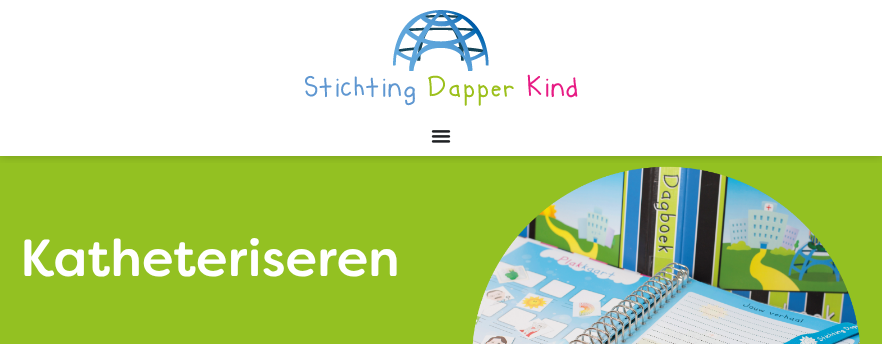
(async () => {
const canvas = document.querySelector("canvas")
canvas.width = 882
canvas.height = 344
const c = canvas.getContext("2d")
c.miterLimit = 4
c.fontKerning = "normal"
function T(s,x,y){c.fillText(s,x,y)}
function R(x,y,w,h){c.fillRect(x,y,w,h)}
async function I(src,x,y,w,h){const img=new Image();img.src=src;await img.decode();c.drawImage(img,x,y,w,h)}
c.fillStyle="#fff"
R(0,0,882,344)
c.fillStyle="#93c122"
R(0,156,882,188)
await I("3.png",472,166,388,178)
c.save()
c.beginPath()
c.rect(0,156,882,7)
c.clip()
c.fillStyle="#00000036"
c.filter="blur(5px)"
c.beginPath()
c.rect(0,0,882,156)
c.fill()
c.filter="none"
c.restore()
await I("1.png",305,10,273,96)
await I("2.png",431,130,20,13)
c.font="500 52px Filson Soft"
c.fillStyle="#fff"
T("Katheteriseren",20,276)
})()
